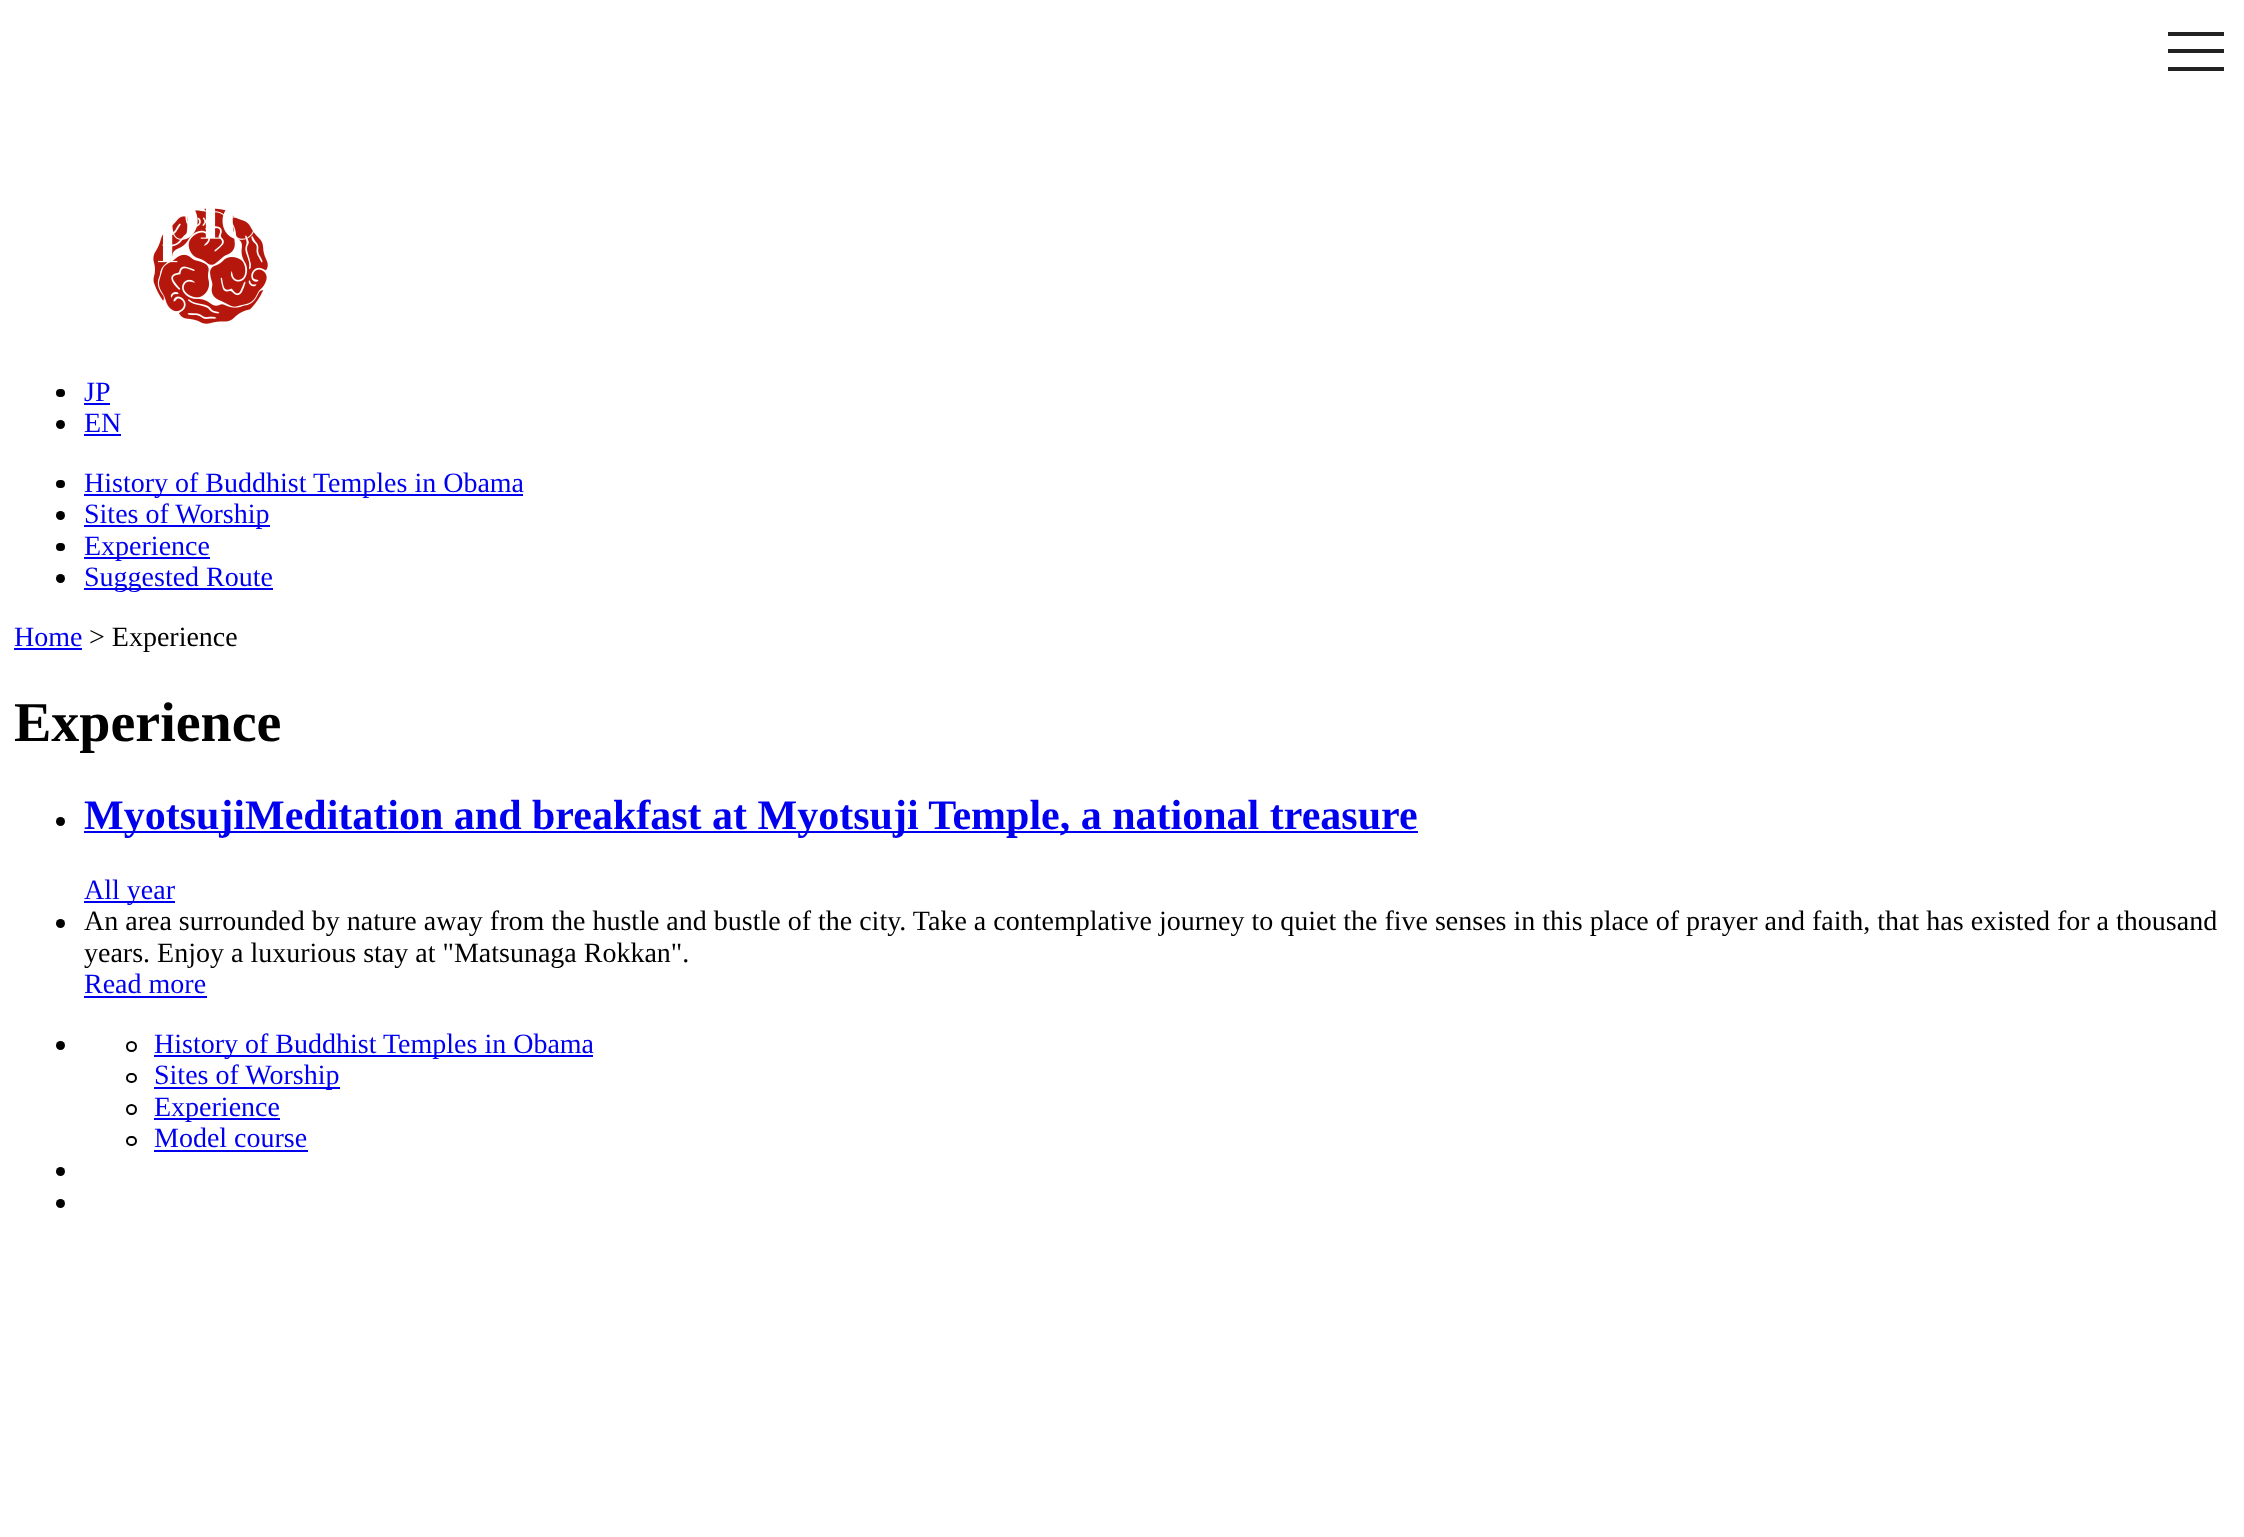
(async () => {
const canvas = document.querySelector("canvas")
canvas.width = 2244
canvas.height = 1537
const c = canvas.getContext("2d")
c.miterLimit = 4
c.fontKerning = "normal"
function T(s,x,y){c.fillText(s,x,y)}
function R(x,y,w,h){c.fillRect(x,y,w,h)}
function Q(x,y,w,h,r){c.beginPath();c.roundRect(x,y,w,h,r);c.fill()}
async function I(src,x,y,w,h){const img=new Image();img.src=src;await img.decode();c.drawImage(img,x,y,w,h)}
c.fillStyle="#fff"
R(0,0,2244,1537)
c.fillStyle="#222"
R(2168,49,56,4)
R(2168,32,56,4)
R(2168,67,56,4)
await I("1.png",153,208,115,116)
c.fillStyle="#000"
Q(56,389,9,8,4)
c.font="28px Liberation Serif"
c.fillStyle="#00e"
T("JP",84,401)
R(84,403,26,2)
c.fillStyle="#000"
c.beginPath()
c.arc(60.5,424.5,4.5,0,7)
c.fill()
c.fillStyle="#00e"
T("EN",84,432)
R(84,434,37,2)
c.fillStyle="#000"
Q(56,480,9,8,4)
c.fillStyle="#00e"
R(84,494,439,2)
T("History of Buddhist Temples in Obama",84,492)
c.fillStyle="#000"
c.beginPath()
c.arc(60.5,515.5,4.5,0,7)
c.fill()
c.fillStyle="#00e"
R(84,525,186,2)
T("Sites of Worship",84,523)
c.fillStyle="#000"
Q(56,543,9,8,4)
c.fillStyle="#00e"
R(84,557,126,2)
T("Experience",84,555)
c.fillStyle="#000"
c.beginPath()
c.arc(60.5,578.5,4.5,0,7)
c.fill()
c.fillStyle="#00e"
R(84,588,189,2)
T("Suggested Route",84,586)
T("Home",14,646)
R(14,648,68,2)
c.fillStyle="#000"
T("> Experience",89,646)
c.font="bold 56px Liberation Serif"
T("Experience",14,741)
c.beginPath()
c.arc(60.5,821.5,4.5,0,7)
c.fill()
c.fillStyle="#00e"
R(84,831,1334,2)
c.font="bold 42px Liberation Serif"
T("MyotsujiMeditation and breakfast at Myotsuji Temple, a national treasure",84,829)
R(84,901,91,2)
c.font="28px Liberation Serif"
T("All year",84,899)
c.fillStyle="#000"
c.beginPath()
c.arc(60.5,923.5,4.5,0,7)
c.fill()
T("An area surrounded by nature away from the hustle and bustle of the city. Take a contemplative journey to quiet the five senses in this place of prayer and faith, that has existed for a thousand",84,930)
T("years. Enjoy a luxurious stay at \"Matsunaga Rokkan\".",84,962)
c.fillStyle="#00e"
T("Read more",84,993)
R(84,996,123,2)
c.fillStyle="#000"
c.beginPath()
c.arc(60.5,1045.5,4.5,0,7)
c.fill()
c.beginPath()
c.arc(131.5,1046.5,4.5,0,7)
c.strokeStyle="#000"
c.lineWidth=2
c.stroke()
c.fillStyle="#00e"
R(154,1055,439,2)
T("History of Buddhist Temples in Obama",154,1053)
c.beginPath()
c.roundRect(127,1074,9,8,4)
c.stroke()
R(154,1087,186,2)
T("Sites of Worship",154,1084)
c.beginPath()
c.arc(131.5,1109.5,4.5,0,7)
c.stroke()
R(154,1118,126,2)
T("Experience",154,1116)
c.beginPath()
c.roundRect(127,1137,9,8,4)
c.stroke()
T("Model course",154,1147)
R(154,1150,154,2)
c.fillStyle="#000"
c.beginPath()
c.arc(60.5,1171.5,4.5,0,7)
c.fill()
c.beginPath()
c.arc(60.5,1203.5,4.5,0,7)
c.fill()
})()
